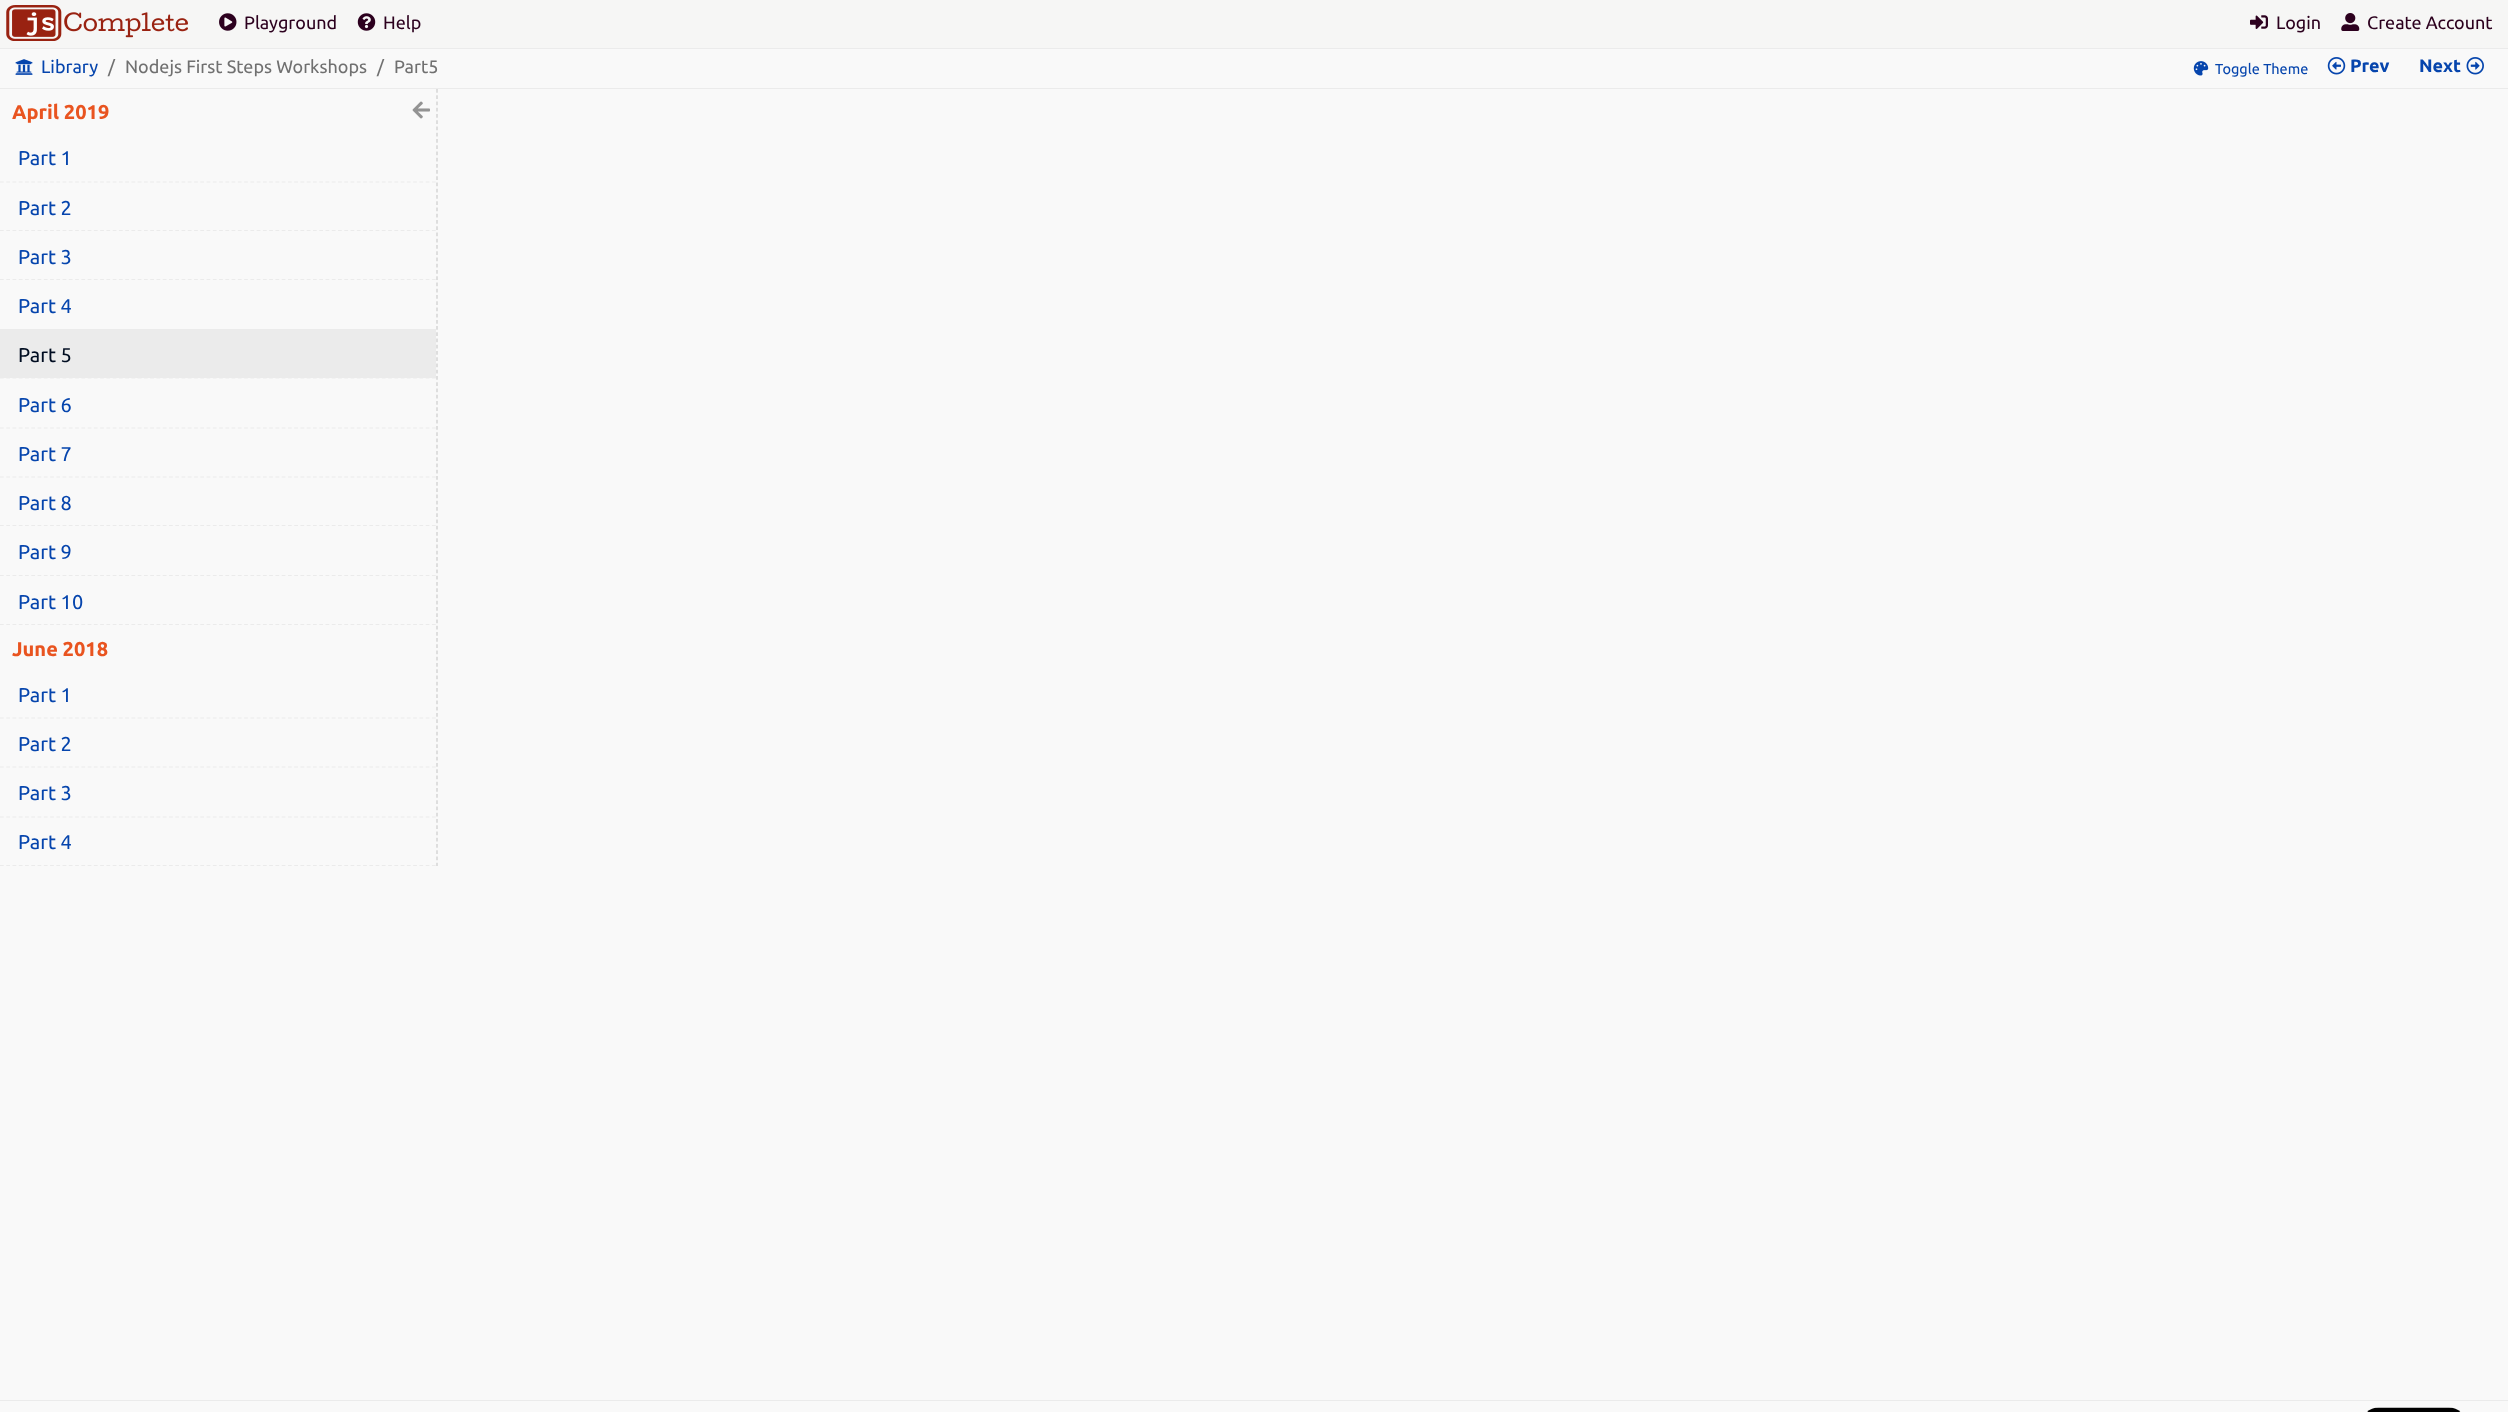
(async () => {
const canvas = document.querySelector("canvas")
canvas.width = 2508
canvas.height = 1412
const c = canvas.getContext("2d")
c.miterLimit = 4
c.fontKerning = "normal"
function T(s,x,y){c.fillText(s,x,y)}
function R(x,y,w,h){c.fillRect(x,y,w,h)}
async function I(src,x,y,w,h){const img=new Image();img.src=src;await img.decode();c.drawImage(img,x,y,w,h)}
let path
c.fillStyle="#f9f9f9"
R(0,0,2508,1412)
c.fillStyle="#ebebeb"
R(0,48,2508,1)
c.fillStyle="#f6f6f5"
R(0,0,2508,48)
await I("1.png",6,5,182,36)
await I("2.png",219,13,18,18)
c.font="18px Ubuntu"
c.fillStyle="#2c001e"
T("Playground",244,29)
await I("3.png",357,13,19,18)
T("Help",383,29)
await I("4.png",2250,15,18,14)
T("Login",2276,29)
await I("5.png",2341,13,19,18)
T("Create Account",2367,29)
c.fillStyle="#ebebeb"
R(0,88,2508,1)
await I("6.png",15,59,18,16)
c.fillStyle="#0645ad"
T("Library",41,73)
c.fillStyle="#707070"
T("/",108,73)
T("Nodejs First Steps Workshops",125,73)
T("/",377,73)
T("Part5",394,73)
await I("7.png",2193,61,16,15)
c.font="14.5px Ubuntu"
c.fillStyle="#0645ad"
T("Toggle Theme",2215,74)
await I("8.png",2327,57,19,18)
c.font="bold 18px Ubuntu"
T("Prev",2350,72)
T("Next",2419,72)
await I("9.png",2466,57,18,18)
path = new Path2D("M437 89v777")
c.strokeStyle="#ccc"
c.lineWidth=1.2
c.setLineDash([3.75,2.49])
c.stroke(path)
path = new Path2D("M0 624.5h436")
c.strokeStyle="#ebebeb"
c.setLineDash([3.75,2.51])
c.stroke(path)
c.font="bold 20px Ubuntu"
c.fillStyle="#e95420"
T("April 2019",12,119)
c.font="20px Ubuntu"
c.fillStyle="#0645ad"
T("Part 1",18,165)
path = new Path2D("M0 182h436")
c.stroke(path)
T("Part 2",18,215)
path = new Path2D("M0 230.5h436")
c.stroke(path)
T("Part 3",18,264)
path = new Path2D("M0 279.5h436")
c.stroke(path)
T("Part 4",18,313)
c.fillStyle="#ebebeb"
R(0,329,436,49)
c.fillStyle="#000d21"
T("Part 5",18,362)
path = new Path2D("M0 378h436")
c.stroke(path)
c.fillStyle="#0645ad"
T("Part 6",18,412)
path = new Path2D("M0 428h436")
c.stroke(path)
T("Part 7",18,461)
path = new Path2D("M0 477h436")
c.stroke(path)
T("Part 8",18,510)
path = new Path2D("M0 525.5h436")
c.stroke(path)
T("Part 9",18,559)
path = new Path2D("M0 575.5h436")
c.stroke(path)
T("Part 10",18,609)
path = new Path2D("M0 865.5h436")
c.stroke(path)
c.font="bold 20px Ubuntu"
c.fillStyle="#e95420"
T("June 2018",12,656)
c.font="20px Ubuntu"
c.fillStyle="#0645ad"
T("Part 1",18,702)
path = new Path2D("M0 718h436")
c.stroke(path)
T("Part 2",18,751)
path = new Path2D("M0 767h436")
c.stroke(path)
T("Part 3",18,800)
path = new Path2D("M0 817h436")
c.stroke(path)
T("Part 4",18,849)
await I("10.png",412,101,18,18)
c.fillStyle="#ebebeb"
R(0,1400,2508,1)
await I("11.png",2367,1407,94,5)
})()
